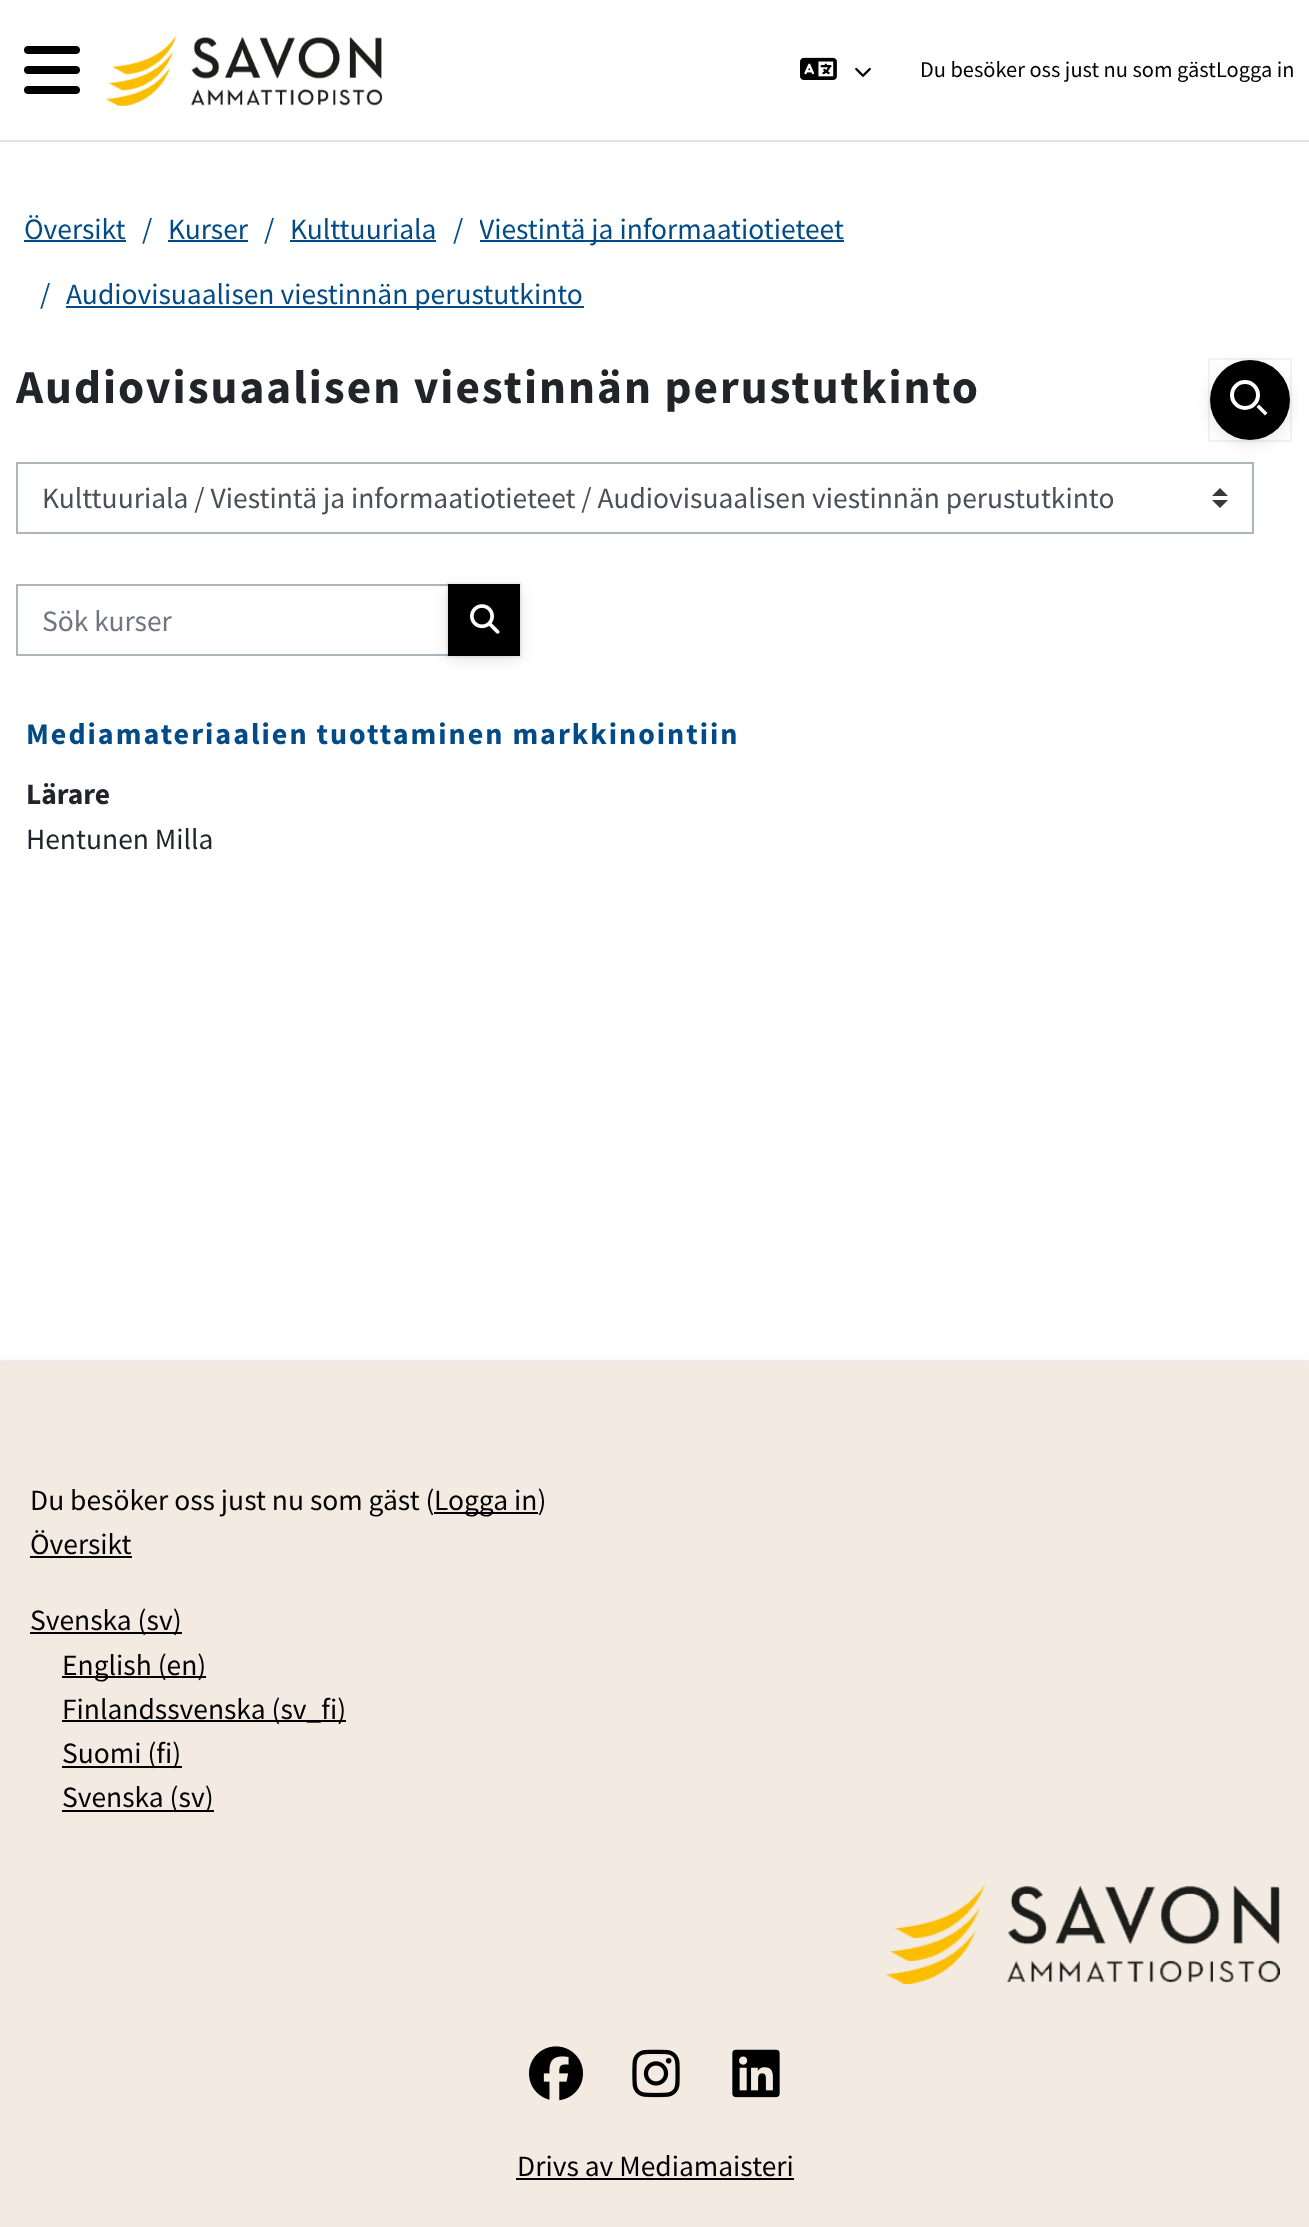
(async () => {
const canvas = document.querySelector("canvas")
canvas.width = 1309
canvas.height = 2227
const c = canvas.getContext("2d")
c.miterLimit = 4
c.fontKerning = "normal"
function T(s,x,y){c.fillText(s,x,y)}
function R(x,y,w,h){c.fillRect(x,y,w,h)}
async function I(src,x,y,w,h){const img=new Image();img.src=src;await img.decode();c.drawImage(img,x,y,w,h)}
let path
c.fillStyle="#fff"
R(0,0,1309,2227)
c.fillStyle="#dee2e6"
R(0,140,1309,2)
await I("1.png",24,46,56,48)
await I("2.png",106,35,276,71)
await I("3.png",800,57,37,23)
await I("4.png",855,67,16,10)
c.font="22.4px Source Sans Pro"
c.fillStyle="#000"
T("Du besöker oss just nu som gäst",920,77)
T("Logga in",1216,77)
c.fillStyle="#373a3c"
path = new Path2D("M1220 488l-8 8h16zm0 20l-8-8h16z")
c.fill(path)
c.strokeStyle="#adb5bd"
c.lineWidth=2
c.strokeRect(17,463,1236,70)
c.fillStyle="#0000001a"
c.filter="blur(8px)"
c.beginPath()
c.roundRect(1210,364,80,80,40)
c.fill()
c.filter="none"
c.strokeStyle="#0000000d"
c.strokeRect(1209,359,82,82)
c.fillStyle="#000"
c.beginPath()
c.arc(1250,400,40,0,7)
c.fill()
c.fillStyle="#fff"
path = new Path2D("M1259 404.5l8.5 8.5l-2.5 2.5l-8.5-8.5z")
c.fill(path)
c.beginPath()
c.arc(1245,395,13,0,7)
c.strokeStyle="#fff"
c.lineWidth=4
c.stroke()
c.font="29.5px Source Sans Pro"
c.fillStyle="#024b87"
T("Översikt",24,239)
R(24,240,102,2)
T("/",142,239)
T("Kurser",168,239)
R(168,240,80,2)
T("/",264,239)
T("Kulttuuriala",290,239)
R(290,240,146,2)
T("/",453,239)
R(480,240,364,2)
c.save()
c.beginPath()
c.rect(480,206,364,44)
c.clip()
T("Viestintä ja informaatiotieteet",479,239)
c.restore()
T("/",40,304)
R(66,306,518,2)
T("Audiovisuaalisen viestinnän perustutkinto",66,304)
c.letterSpacing="2px"
c.font="bold 47.25px Source Sans Pro"
c.fillStyle="#212529"
T("Audiovisuaalisen viestinnän perustutkinto",16,403)
c.letterSpacing="0px"
c.font="29.5px Source Sans Pro"
c.fillStyle="#495057"
T("Kulttuuriala / Viestintä ja informaatiotieteet / Audiovisuaalisen viestinnän perustutkinto",42,508)
c.strokeStyle="#adb5bd"
c.lineWidth=2
c.strokeRect(17,585,432,70)
c.fillStyle="#6f7680"
T("Sök kurser",42,631)
c.fillStyle="#0000001a"
c.filter="blur(8px)"
c.beginPath()
c.rect(448,588,72,72)
c.fill()
c.filter="none"
c.strokeStyle="#0000000d"
c.strokeRect(447,583,74,74)
c.fillStyle="#000"
R(448,584,72,72)
await I("5.png",470,604,30,30)
c.letterSpacing="2px"
c.font="bold 30px Source Sans Pro"
c.fillStyle="#024b87"
T("Mediamateriaalien tuottaminen markkinointiin",26,744)
c.letterSpacing="0px"
c.font="bold 29.5px Source Sans Pro"
c.fillStyle="#212529"
T("Lärare",26,804)
c.font="29.5px Source Sans Pro"
T("Hentunen Milla",26,849)
c.fillStyle="#0000001a"
c.filter="blur(8px)"
c.beginPath()
c.rect(0,1366,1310,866)
c.fill()
c.filter="none"
c.strokeRect(-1,1361,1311,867)
c.fillStyle="#f3ebe2"
R(0,1362,1309,865)
c.fillStyle="#000"
T("Du besöker oss just nu som gäst (",30,1510)
R(434,1512,104,2)
T("Logga in)",434,1510)
T("Översikt",30,1554)
R(30,1556,102,2)
R(30,1632,152,2)
T("Svenska (sv)",30,1630)
R(62,1676,144,2)
T("English (en)",62,1675)
R(62,1720,284,2)
T("Finlandssvenska (sv_fi)",62,1719)
R(62,1766,120,2)
T("Suomi (fi)",62,1763)
R(62,1810,152,2)
T("Svenska (sv)",62,1807)
await I("6.png",885,1884,395,100)
await I("7.png",528,2046,56,55)
await I("8.png",632,2049,48,49)
await I("9.png",732,2049,48,49)
T("Drivs av Mediamaisteri",517,2176)
R(516,2178,278,2)
})()
